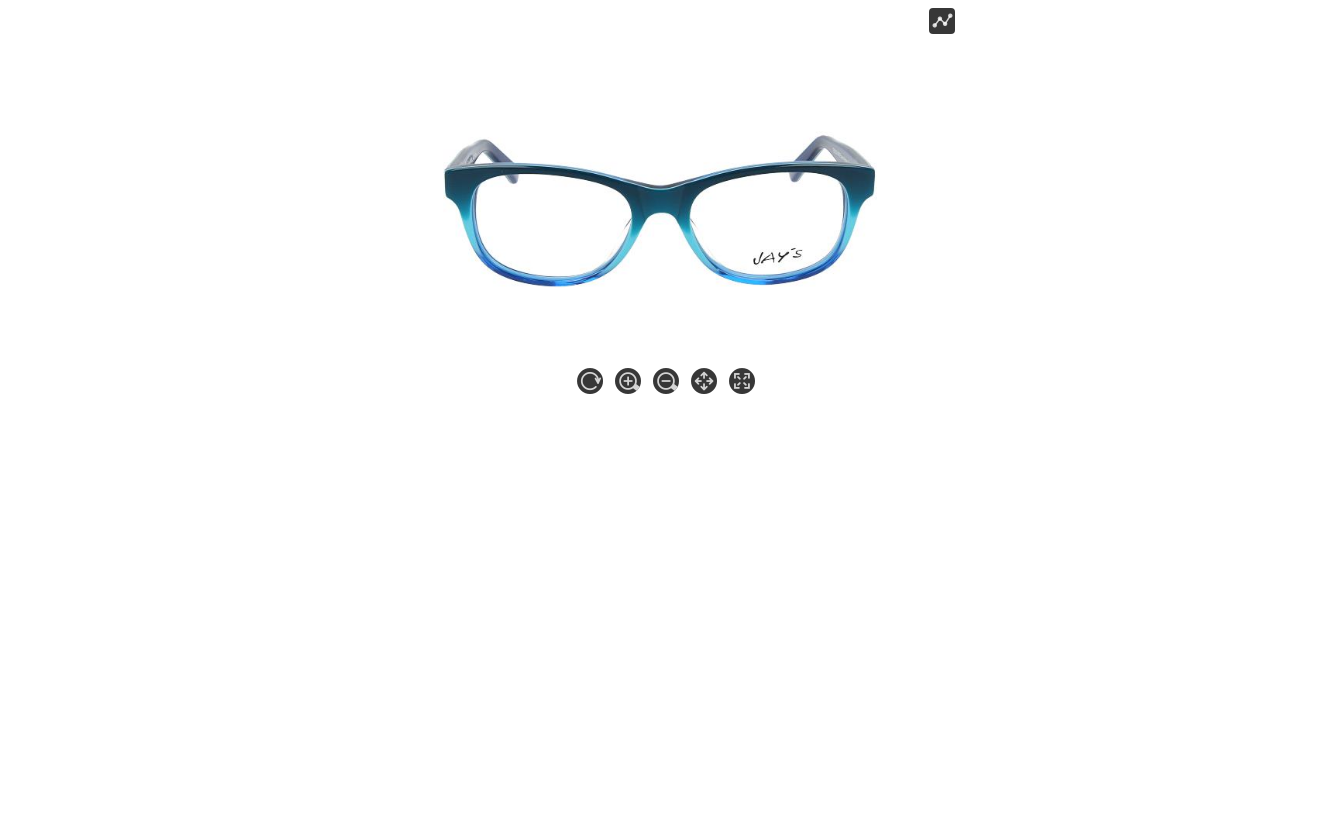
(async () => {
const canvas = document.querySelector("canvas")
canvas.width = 1332
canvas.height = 817
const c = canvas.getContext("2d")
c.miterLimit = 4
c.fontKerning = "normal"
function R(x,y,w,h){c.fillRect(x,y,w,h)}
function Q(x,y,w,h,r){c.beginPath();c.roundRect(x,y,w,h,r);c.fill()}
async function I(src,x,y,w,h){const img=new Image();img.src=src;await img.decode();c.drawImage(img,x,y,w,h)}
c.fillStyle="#fff"
R(0,0,1332,817)
c.fillStyle="#373737"
Q(929,8,26,26,4)
await I("1.png",932,13,21,15)
await I("2.png",443,131,434,157)
await I("3.png",577,368,26,26)
await I("4.png",615,368,26,26)
await I("5.png",653,368,26,26)
await I("6.png",691,368,26,26)
await I("7.png",729,368,26,26)
})()
